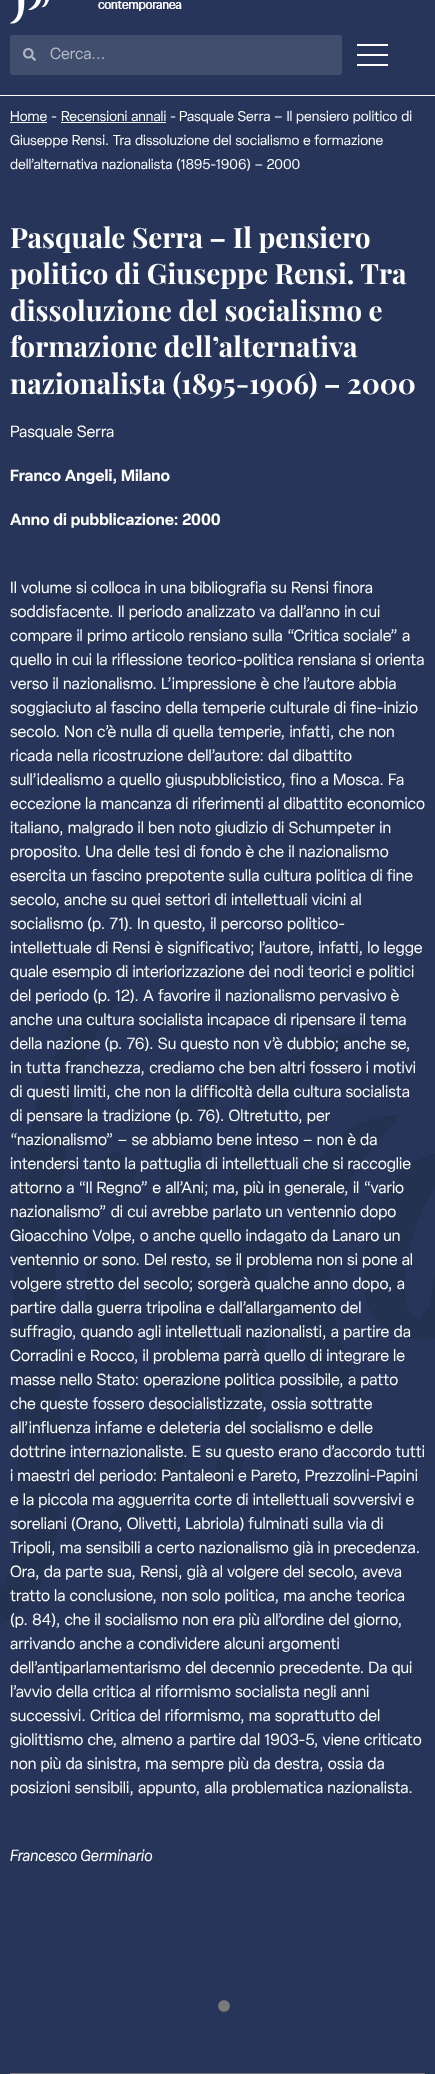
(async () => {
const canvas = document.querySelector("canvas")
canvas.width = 435
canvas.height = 2074
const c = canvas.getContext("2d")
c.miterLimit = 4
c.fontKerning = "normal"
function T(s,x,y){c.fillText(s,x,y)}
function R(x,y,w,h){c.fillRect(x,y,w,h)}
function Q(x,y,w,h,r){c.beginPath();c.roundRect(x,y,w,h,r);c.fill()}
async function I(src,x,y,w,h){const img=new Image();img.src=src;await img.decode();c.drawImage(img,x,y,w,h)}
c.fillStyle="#263559"
R(0,0,435,2074)
await I("1.png",0,998,435,627)
c.fillStyle="#fff"
R(0,95,435,1)
await I("2.png",10,0,172,24)
c.fillStyle="#414e6e"
Q(10,35,332,40,3)
await I("3.png",23,48,13,13)
c.font="16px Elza"
c.fillStyle="#b3b8c5"
T("Cerca...",50,59)
c.fillStyle="#fff"
R(357,54,31,2)
R(357,44,31,2)
R(357,64,31,2)
c.font="14px Elza"
T("Home",10,121)
R(10,122,37,1)
T("-",51,121)
c.wordSpacing="1px"
T("Recensioni annali",61,121)
R(61,122,105,1)
c.wordSpacing="0px"
T("-",170,121)
c.wordSpacing="1px"
T("Pasquale Serra – Il pensiero politico di",179,121)
T("Giuseppe Rensi. Tra dissoluzione del socialismo e formazione",10,145)
T("dell’alternativa nazionalista (1895-1906) – 2000",10,169)
c.wordSpacing="0px"
c.font="bold 28px Playfair Display"
T("Pasquale Serra – Il pensiero",10,248)
T("politico di Giuseppe Rensi. Tra",10,284)
T("dissoluzione del socialismo e",10,321)
T("formazione dell’alternativa",10,357)
T("nazionalista (1895-1906) – 2000",10,394)
c.wordSpacing="1px"
c.font="16px Elza"
T("Pasquale Serra",10,437)
c.font="600 16px Elza"
T("Franco Angeli,",10,481)
c.wordSpacing="0px"
T("Milano",121,481)
c.wordSpacing="1px"
T("Anno di pubblicazione: 2000",10,525)
c.font="16px Elza"
T("Il volume si colloca in una bibliografia su Rensi finora",10,593)
T("soddisfacente. Il periodo analizzato va dall’anno in cui",10,617)
T("compare il primo articolo rensiano sulla “Critica sociale” a",10,641)
T("quello in cui la riflessione teorico-politica rensiana si orienta",10,665)
T("verso il nazionalismo. L’impressione è che l’autore abbia",10,689)
T("soggiaciuto al fascino della temperie culturale di fine-inizio",10,713)
T("secolo. Non c’è nulla di quella temperie, infatti, che non",10,737)
T("ricada nella ricostruzione dell’autore: dal dibattito",10,761)
T("sull’idealismo a quello giuspubblicistico, fino a Mosca. Fa",10,785)
T("eccezione la mancanza di riferimenti al dibattito economico",10,809)
T("italiano, malgrado il ben noto giudizio di Schumpeter in",10,833)
T("proposito. Una delle tesi di fondo è che il nazionalismo",10,857)
T("esercita un fascino prepotente sulla cultura politica di fine",10,881)
T("secolo, anche su quei settori di intellettuali vicini al",10,905)
T("socialismo (p. 71). In questo, il percorso politico-",10,929)
T("intellettuale di Rensi è significativo; l’autore, infatti, lo legge",10,953)
T("quale esempio di interiorizzazione dei nodi teorici e politici",10,977)
T("del periodo (p. 12). A favorire il nazionalismo pervasivo è",10,1001)
T("anche una cultura socialista incapace di ripensare il tema",10,1025)
T("della nazione (p. 76). Su questo non v’è dubbio; anche se,",10,1049)
T("in tutta franchezza, crediamo che ben altri fossero i motivi",10,1073)
T("di questi limiti, che non la difficoltà della cultura socialista",10,1097)
T("di pensare la tradizione (p. 76). Oltretutto, per",10,1121)
T("“nazionalismo” – se abbiamo bene inteso – non è da",10,1145)
T("intendersi tanto la pattuglia di intellettuali che si raccoglie",10,1169)
T("attorno a “Il Regno” e all’Ani; ma, più in generale, il “vario",10,1193)
T("nazionalismo” di cui avrebbe parlato un ventennio dopo",10,1217)
T("Gioacchino Volpe, o anche quello indagato da Lanaro un",10,1241)
T("ventennio or sono. Del resto, se il problema non si pone al",10,1265)
T("volgere stretto del secolo; sorgerà qualche anno dopo, a",10,1289)
T("partire dalla guerra tripolina e dall’allargamento del",10,1313)
T("suffragio, quando agli intellettuali nazionalisti, a partire da",10,1337)
T("Corradini e Rocco, il problema parrà quello di integrare le",10,1361)
T("masse nello Stato: operazione politica possibile, a patto",10,1385)
T("che queste fossero desocialistizzate, ossia sottratte",10,1409)
T("all’influenza infame e deleteria del socialismo e delle",10,1433)
T("dottrine internazionaliste. E su questo erano d’accordo tutti",10,1457)
T("i maestri del periodo: Pantaleoni e Pareto, Prezzolini-Papini",10,1481)
T("e la piccola ma agguerrita corte di intellettuali sovversivi e",10,1505)
T("soreliani (Orano, Olivetti, Labriola) fulminati sulla via di",10,1529)
T("Tripoli, ma sensibili a certo nazionalismo già in precedenza.",10,1553)
T("Ora, da parte sua, Rensi, già al volgere del secolo, aveva",10,1577)
T("tratto la conclusione, non solo politica, ma anche teorica",10,1601)
T("(p. 84), che il socialismo non era più all’ordine del giorno,",10,1625)
T("arrivando anche a condividere alcuni argomenti",10,1649)
T("dell’antiparlamentarismo del decennio precedente. Da qui",10,1673)
T("l’avvio della critica al riformismo socialista negli anni",10,1697)
T("successivi. Critica del riformismo, ma soprattutto del",10,1721)
T("giolittismo che, almeno a partire dal 1903-5, viene criticato",10,1745)
T("non più da sinistra, ma sempre più da destra, ossia da",10,1769)
T("posizioni sensibili, appunto, alla problematica nazionalista.",10,1793)
c.wordSpacing="0px"
c.font="italic 16px Elza"
T("Francesco Germinario",10,1861)
c.fillStyle="#7a7a7a"
R(10,2073,415,1)
await I("4.png",218,2000,12,12)
})()
